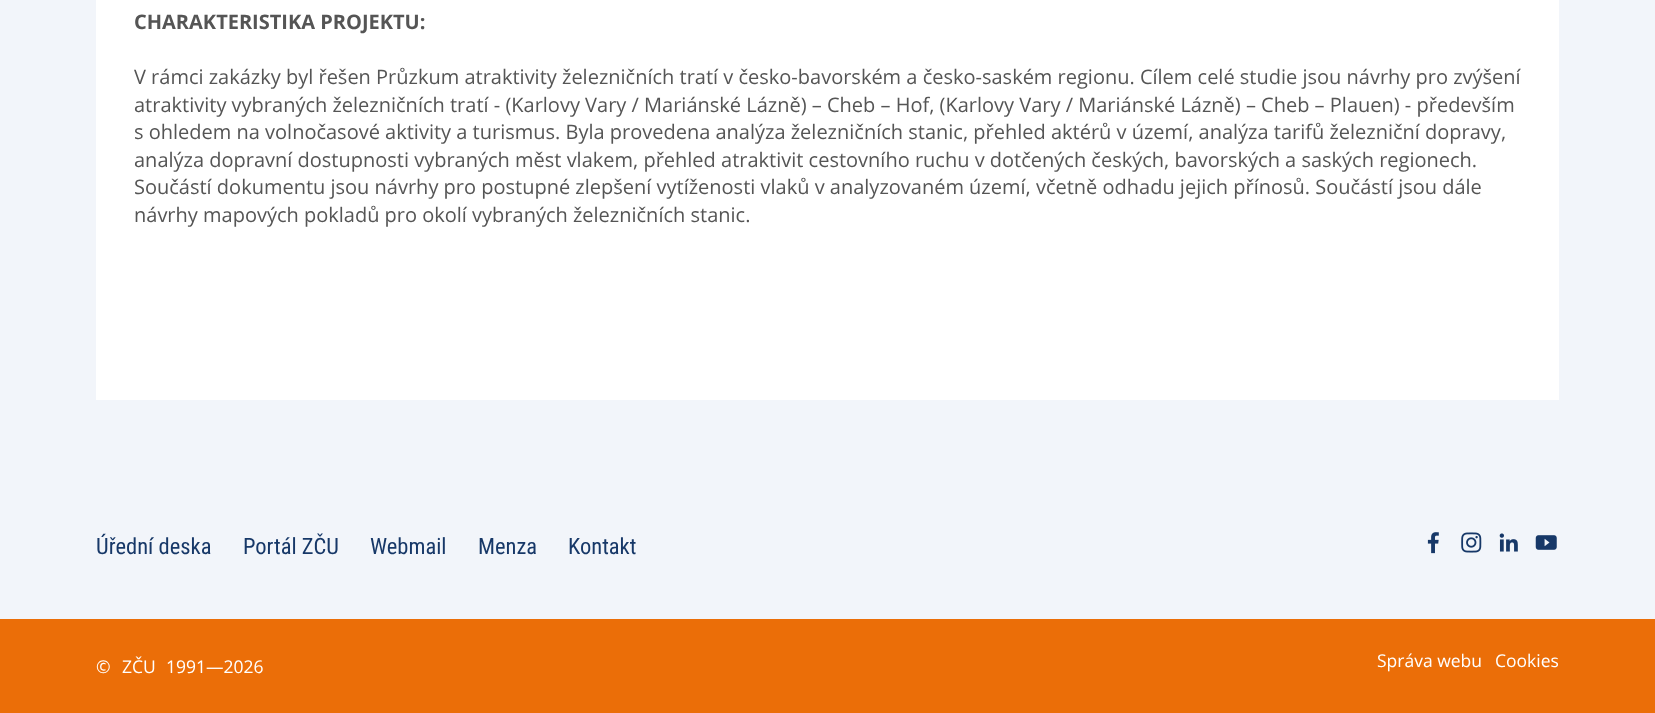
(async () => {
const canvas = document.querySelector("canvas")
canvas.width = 1655
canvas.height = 713
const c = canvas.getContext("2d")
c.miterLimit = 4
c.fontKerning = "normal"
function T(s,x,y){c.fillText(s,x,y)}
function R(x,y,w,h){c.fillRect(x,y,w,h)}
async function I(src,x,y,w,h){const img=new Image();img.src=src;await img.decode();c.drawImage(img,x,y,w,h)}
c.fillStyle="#f2f5fa"
R(0,0,1655,713)
c.fillStyle="#fff"
R(96,0,1463,400)
c.font="bold 20px Open Sans"
c.fillStyle="#555"
T("CHARAKTERISTIKA PROJEKTU:",134,29)
c.font="20px Open Sans"
T("V rámci zakázky byl řešen Průzkum atraktivity železničních tratí v česko-bavorském a česko-saském regionu. Cílem celé studie jsou návrhy pro zvýšení",134,84)
T("atraktivity vybraných železničních tratí - (Karlovy Vary / Mariánské Lázně) – Cheb – Hof, (Karlovy Vary / Mariánské Lázně) – Cheb – Plauen) - především",134,112)
T("s ohledem na volnočasové aktivity a turismus. Byla provedena analýza železničních stanic, přehled aktérů v území, analýza tarifů železniční dopravy,",134,139)
T("analýza dopravní dostupnosti vybraných měst vlakem, přehled atraktivit cestovního ruchu v dotčených českých, bavorských a saských regionech.",134,167)
T("Součástí dokumentu jsou návrhy pro postupné zlepšení vytíženosti vlaků v analyzovaném území, včetně odhadu jejich přínosů. Součástí jsou dále",134,194)
T("návrhy mapových pokladů pro okolí vybraných železničních stanic.",134,222)
c.font="22.5px Roboto Condensed"
c.fillStyle="#173868"
T("Úřední deska",96,554)
T("Portál ZČU",243,554)
T("Webmail",370,554)
T("Menza",478,554)
T("Kontakt",568,554)
await I("1.png",1427,532,12,22)
await I("2.png",1461,532,21,21)
await I("3.png",1499,533,19,19)
await I("4.png",1535,535,22,15)
c.fillStyle="#eb6e08"
R(0,619,1655,94)
c.font="17.5px Open Sans"
c.fillStyle="#fff"
T("©",96,673)
T("ZČU",122,673)
T("1991—2026",166,673)
T("Správa webu",1377,667)
T("Cookies",1495,667)
})()
